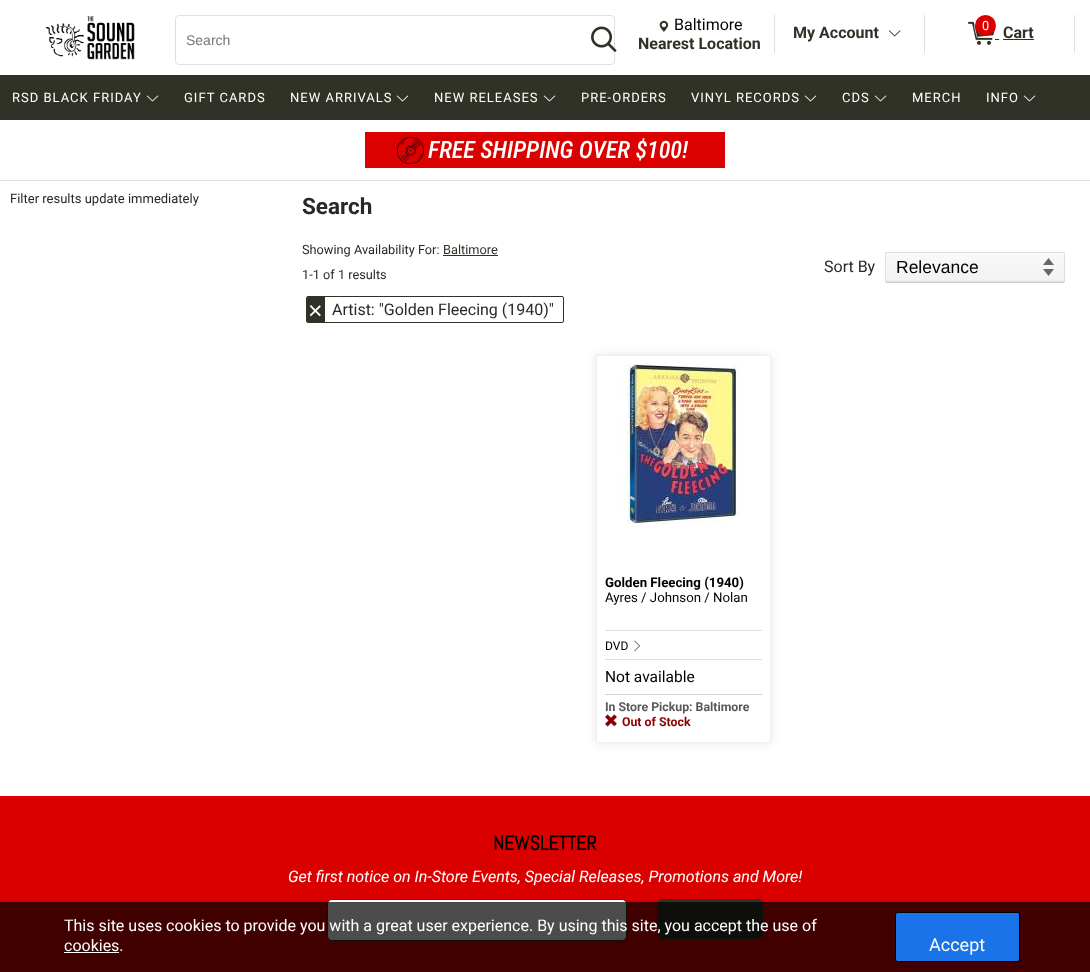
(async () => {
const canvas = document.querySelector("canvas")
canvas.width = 1090
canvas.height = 972
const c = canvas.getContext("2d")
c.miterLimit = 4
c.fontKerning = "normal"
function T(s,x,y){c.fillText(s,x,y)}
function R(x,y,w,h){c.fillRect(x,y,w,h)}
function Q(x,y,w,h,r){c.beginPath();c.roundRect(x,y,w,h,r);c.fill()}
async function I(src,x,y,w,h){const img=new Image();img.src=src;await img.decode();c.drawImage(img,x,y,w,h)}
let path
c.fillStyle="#fff"
R(0,0,1090,972)
await I("1.png",45,16,90,44)
c.beginPath()
c.roundRect(175.5,15.5,439,49,3.5)
c.strokeStyle="#e0e0e0"
c.stroke()
c.font="14px Liberation Sans"
c.fillStyle="#757575"
T("Search",186,45)
await I("2.png",591,26,26,26)
c.fillStyle="#e0e0e0"
R(774,15,1,38)
await I("3.png",659,20,10,12)
c.font="16px Roboto"
c.fillStyle="#000"
T("Baltimore",674,30)
c.font="bold 16px Roboto"
c.fillStyle="#303227"
T("Nearest Location",638,49)
c.fillStyle="#e0e0e0"
R(924,15,1,38)
c.fillStyle="#303227"
T("My Account",793,38)
await I("4.png",888,30,13,7)
c.fillStyle="#e0e0e0"
R(1074,15,1,38)
c.fillStyle="#303227"
R(995,39,4,1)
await I("5.png",968,21,28,24)
c.fillStyle="#db0000"
c.beginPath()
c.arc(985.5,25.5,10.5,0,7)
c.fill()
c.font="12.75px Roboto"
c.fillStyle="#fff"
T("0",982,30)
c.font="bold 16px Roboto"
c.fillStyle="#303227"
T("Cart",1003,38)
R(1003,39,31,1)
R(0,75,1090,45)
c.letterSpacing="1px"
c.font="13px Roboto"
c.fillStyle="#fff"
T("RSD BLACK FRIDAY",12,102)
await I("6.png",146,95,13,7)
T("GIFT CARDS",184,102)
T("NEW ARRIVALS",290,102)
await I("6.png",396,95,13,7)
T("NEW RELEASES",434,102)
await I("6.png",543,95,13,7)
T("PRE-ORDERS",581,102)
T("VINYL RECORDS",691,102)
await I("6.png",804,95,13,7)
T("CDS",842,102)
await I("6.png",874,95,13,7)
T("MERCH",912,102)
T("INFO",986,102)
await I("6.png",1023,95,13,7)
c.fillStyle="#e0e0e0"
R(0,180,1090,1)
c.fillStyle="#db0101"
R(365,132,360,36)
await I("7.png",397,137,27,27)
c.letterSpacing="0px"
c.font="italic 500 24px Roboto Condensed"
c.fillStyle="#fff"
T("FREE SHIPPING OVER $100!",428,158)
c.font="13px Roboto"
c.fillStyle="#282828"
T("Filter results update immediately",10,203)
c.font="bold 22.5px Roboto"
T("Search",302,214)
c.font="12.75px Roboto"
T("Showing Availability For:",302,254)
c.fillStyle="#303227"
T("Baltimore",443,254)
R(443,255,55,1)
c.fillStyle="#282828"
T("1-1 of 1 results",302,279)
c.font="16px Roboto"
T("Sort By",824,272)
c.fillStyle="#cdcdcd"
c.filter="blur(0.5px)"
c.beginPath()
c.roundRect(885,253,180,30,2)
c.fill()
c.filter="none"
await I("8.png",886,252,179,30)
c.beginPath()
c.roundRect(885.5,252.5,179,29,[0,1.5,1.5,0])
c.stroke()
c.font="17.5px Liberation Sans"
c.fillStyle="#000"
T("Relevance",896,273)
c.beginPath()
c.roundRect(306.5,296.5,257,26,1.5)
c.strokeStyle="#303227"
c.stroke()
c.fillStyle="#303227"
c.beginPath()
c.roundRect(307,297,18,25,[1,0,0,1])
c.fill()
c.font="25px Liberation Sans"
c.fillStyle="#fff"
T("×",308,319)
c.font="16px Roboto"
c.fillStyle="#282828"
T("Artist: \"Golden Fleecing (1940)\"",332,315)
c.save()
path = new Path2D("M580 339h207v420h-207zm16 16h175v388h-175z")
c.clip(path,"evenodd")
c.fillStyle="#0000001a"
c.filter="blur(5px)"
c.beginPath()
c.rect(596,355,175,388)
c.fill()
c.filter="none"
c.restore()
c.strokeStyle="#efefef"
c.strokeRect(596.5,355.5,174,387)
await I("9.png",619,364,128,160)
c.font="bold 13.25px Roboto"
c.fillStyle="#000"
T("Golden Fleecing (1940)",605,587)
c.font="13.25px Roboto"
T("Ayres / Johnson / Nolan",605,602)
c.fillStyle="#e0e0e0"
R(605,630,157,1)
R(605,659,157,1)
c.font="12px Roboto"
c.fillStyle="#000"
T("DVD",605,650)
await I("10.png",634,640,6,12)
c.font="15.5px Roboto"
T("Not available",605,682)
c.fillStyle="#d3d3d3"
R(605,694,157,1)
c.font="bold 12.3px Roboto"
c.fillStyle="#595959"
T("In Store Pickup: Baltimore",605,711)
await I("11.png",605,714,12,13)
c.fillStyle="#8b0000"
T("Out of Stock",622,726)
c.fillStyle="#db0000"
R(0,796,1090,176)
c.font="bold 20px Abel"
c.fillStyle="#000"
T("NEWSLETTER",493,850)
c.font="italic 16px Roboto"
c.fillStyle="#fff"
T("Get first notice on In-Store Events, Special Releases, Promotions and More!",288,882)
c.beginPath()
c.roundRect(327.5,899.5,299,41,4.5)
c.fill()
c.strokeStyle="#303227"
c.stroke()
c.fillStyle="#303227"
Q(657,899,106,40,5)
c.fillStyle="#000000b3"
R(0,902,1090,70)
c.font="16px Roboto"
c.fillStyle="#fff"
T("This site uses cookies to provide you with a great user experience. By using this site, you accept the use of",64,931)
T("cookies.",64,951)
R(64,952,55,1)
c.fillStyle="#1a73e8"
c.beginPath()
c.roundRect(895.5,912.5,124,49,2)
c.fill()
c.strokeStyle="#000"
c.stroke()
c.font="18px Roboto"
c.fillStyle="#fff"
T("Accept",929,951)
})()
